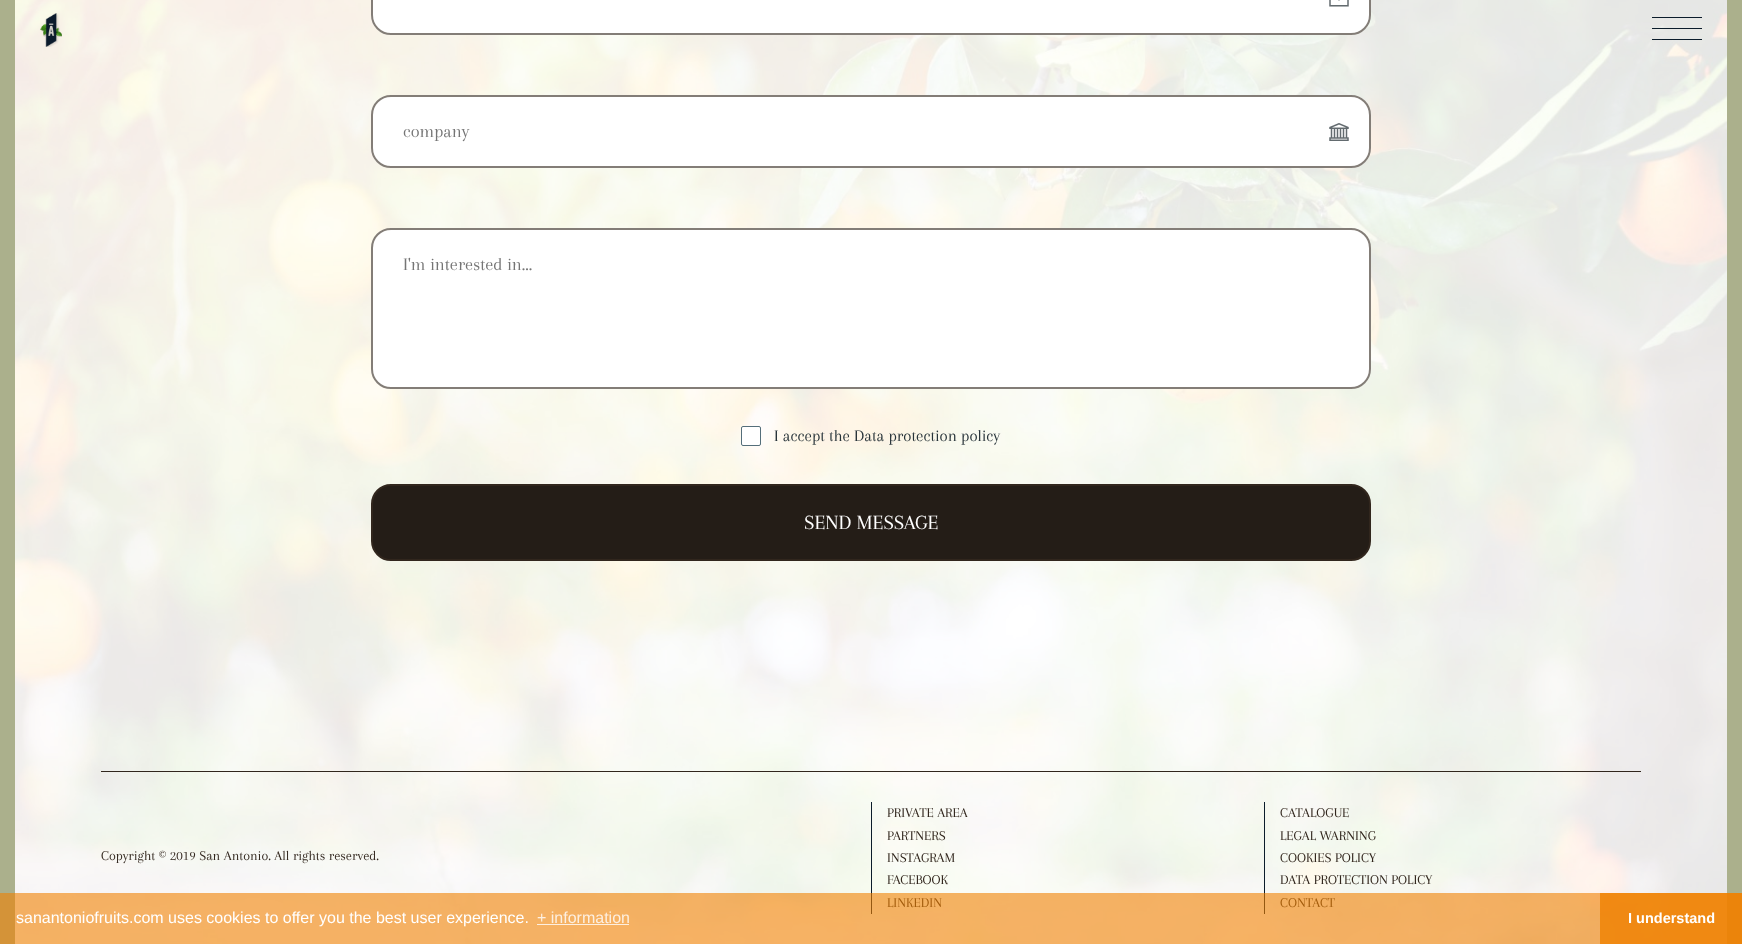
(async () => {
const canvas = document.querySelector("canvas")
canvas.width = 1742
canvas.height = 944
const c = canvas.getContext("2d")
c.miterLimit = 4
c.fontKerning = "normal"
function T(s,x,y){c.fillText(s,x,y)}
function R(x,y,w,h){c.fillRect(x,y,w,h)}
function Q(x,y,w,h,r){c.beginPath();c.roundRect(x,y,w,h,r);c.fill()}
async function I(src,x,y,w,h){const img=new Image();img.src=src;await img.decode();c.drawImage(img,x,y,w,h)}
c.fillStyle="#fff"
R(0,0,1742,944)
c.fillStyle="#abb08c"
R(0,0,15,944)
await I("2.png",15,0,1712,944)
await I("1.png",40,13,22,34)
c.fillStyle="#0b1c2b"
R(1652,17,50,1)
R(1652,28,50,1)
R(1652,39,50,1)
c.fillStyle="#abb08c"
R(1727,0,15,944)
c.fillStyle="#fff"
Q(371,-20,1000,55,20)
c.beginPath()
c.roundRect(372,-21,998,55,19)
c.strokeStyle="#31261d99"
c.lineWidth=2
c.stroke()
await I("3.png",1329,0,20,7)
Q(371,95,1000,73,20)
c.beginPath()
c.roundRect(372,96,998,71,19)
c.stroke()
c.font="18.25px Arapey"
c.fillStyle="#757575"
T("company",403,137)
await I("4.png",1329,123,20,18)
c.fillStyle="#fff"
Q(371,228,1000,161,20)
c.beginPath()
c.roundRect(372,229,998,159,19)
c.stroke()
c.fillStyle="#757575"
T("I'm interested in...",403,270)
c.fillStyle="#fff"
c.beginPath()
c.roundRect(741.5,426.5,19,19,1.5)
c.fill()
c.strokeStyle="#546e7a"
c.lineWidth=1
c.stroke()
c.font="16.75px Arapey"
c.fillStyle="#263238"
T("I accept the Data protection policy",774,441)
c.fillStyle="#241d17"
c.beginPath()
c.roundRect(372,485,998,75,19)
c.fill()
c.strokeStyle="#31261d"
c.lineWidth=2
c.stroke()
c.font="21px Arapey"
c.fillStyle="#fff"
T("SEND MESSAGE",804,529)
c.fillStyle="#31261d"
R(101,771,1540,1)
c.font="14px Arapey"
T("Copyright © 2019 San Antonio. All rights reserved.",101,860)
c.fillStyle="#0b1c2b"
R(871,802,1,112)
c.fillStyle="#31261d"
T("PRIVATE AREA",887,817)
T("PARTNERS",887,840)
T("INSTAGRAM",887,862)
T("FACEBOOK",887,884)
T("LINKEDIN",887,907)
c.fillStyle="#0b1c2b"
R(1264,802,1,112)
c.fillStyle="#31261d"
T("CATALOGUE",1280,817)
T("LEGAL WARNING",1280,840)
T("COOKIES POLICY",1280,862)
T("DATA PROTECTION POLICY",1280,884)
T("CONTACT",1280,907)
c.fillStyle="#f0810099"
R(0,893,1742,51)
c.font="16px Liberation Sans"
c.fillStyle="#fff"
T("sanantoniofruits.com uses cookies to offer you the best user experience.",16,923)
c.fillStyle="#fdefe0"
T("+ information",537,923)
R(537,924,92,1)
c.fillStyle="#f08100cc"
R(1600,893,142,51)
c.font="bold 14.5px Liberation Sans"
c.fillStyle="#fff"
T("I understand",1628,923)
})()
